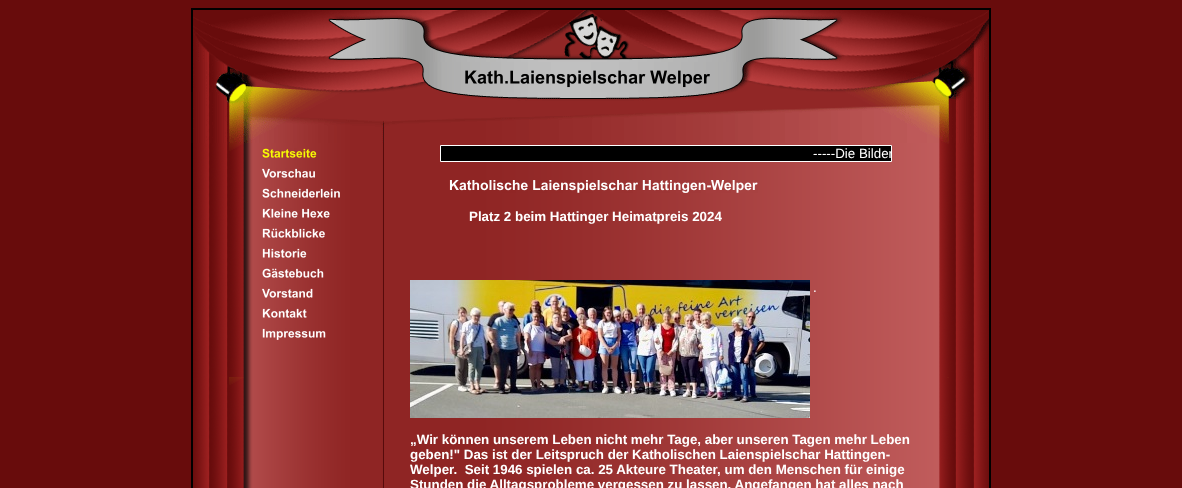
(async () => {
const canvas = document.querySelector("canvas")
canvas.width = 1182
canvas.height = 488
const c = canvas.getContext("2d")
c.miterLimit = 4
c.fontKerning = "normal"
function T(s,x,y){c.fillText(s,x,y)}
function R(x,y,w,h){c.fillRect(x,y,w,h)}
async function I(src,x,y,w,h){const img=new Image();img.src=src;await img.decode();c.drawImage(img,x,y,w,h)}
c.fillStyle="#680c0c"
R(0,0,1182,488)
await I("1.png",191,8,800,54)
await I("2.png",191,62,264,30)
await I("3.png",455,62,264,30)
await I("4.png",719,62,272,30)
await I("5.png",191,92,800,51)
await I("6.png",191,143,61,345)
await I("7.png",252,143,126,345)
await I("8.png",262,148,55,10)
await I("9.png",262,168,53,10)
await I("10.png",262,188,78,10)
await I("11.png",262,208,68,10)
await I("12.png",262,228,63,10)
await I("13.png",262,248,45,10)
await I("14.png",262,268,62,10)
await I("15.png",262,288,51,10)
await I("16.png",262,308,45,10)
await I("17.png",262,328,64,12)
await I("18.png",378,143,32,345)
await I("19.png",410,143,528,345)
c.fillStyle="#000"
c.beginPath()
c.rect(440.5,145.5,451,16)
c.fill()
c.strokeStyle="#fff"
c.stroke()
c.save()
c.beginPath()
c.rect(441,146,450,15)
c.clip()
c.font="13.35px Liberation Sans"
c.fillStyle="#fff"
T("-----Die Bilder",813,158)
c.restore()
await I("20.png",449,180,309,13)
c.font="bold 13.35px Liberation Sans"
c.fillStyle="#fff"
T("Platz 2 beim Hattinger Heimatpreis 2024",469,221)
await I("21.png",410,280,400,138)
c.font="13.35px Liberation Sans"
T(".",813,292)
c.font="bold 13.35px Liberation Sans"
T("„Wir können unserem Leben nicht mehr Tage, aber unseren Tagen mehr Leben",410,444)
T("geben!\" Das ist der Leitspruch der Katholischen Laienspielschar Hattingen-",410,459)
T("Welper.  Seit 1946 spielen ca. 25 Akteure Theater, um den Menschen für einige",410,474)
T("Stunden die Alltagsprobleme vergessen zu lassen. Angefangen hat alles nach",410,489)
await I("22.png",938,143,53,345)
})()
